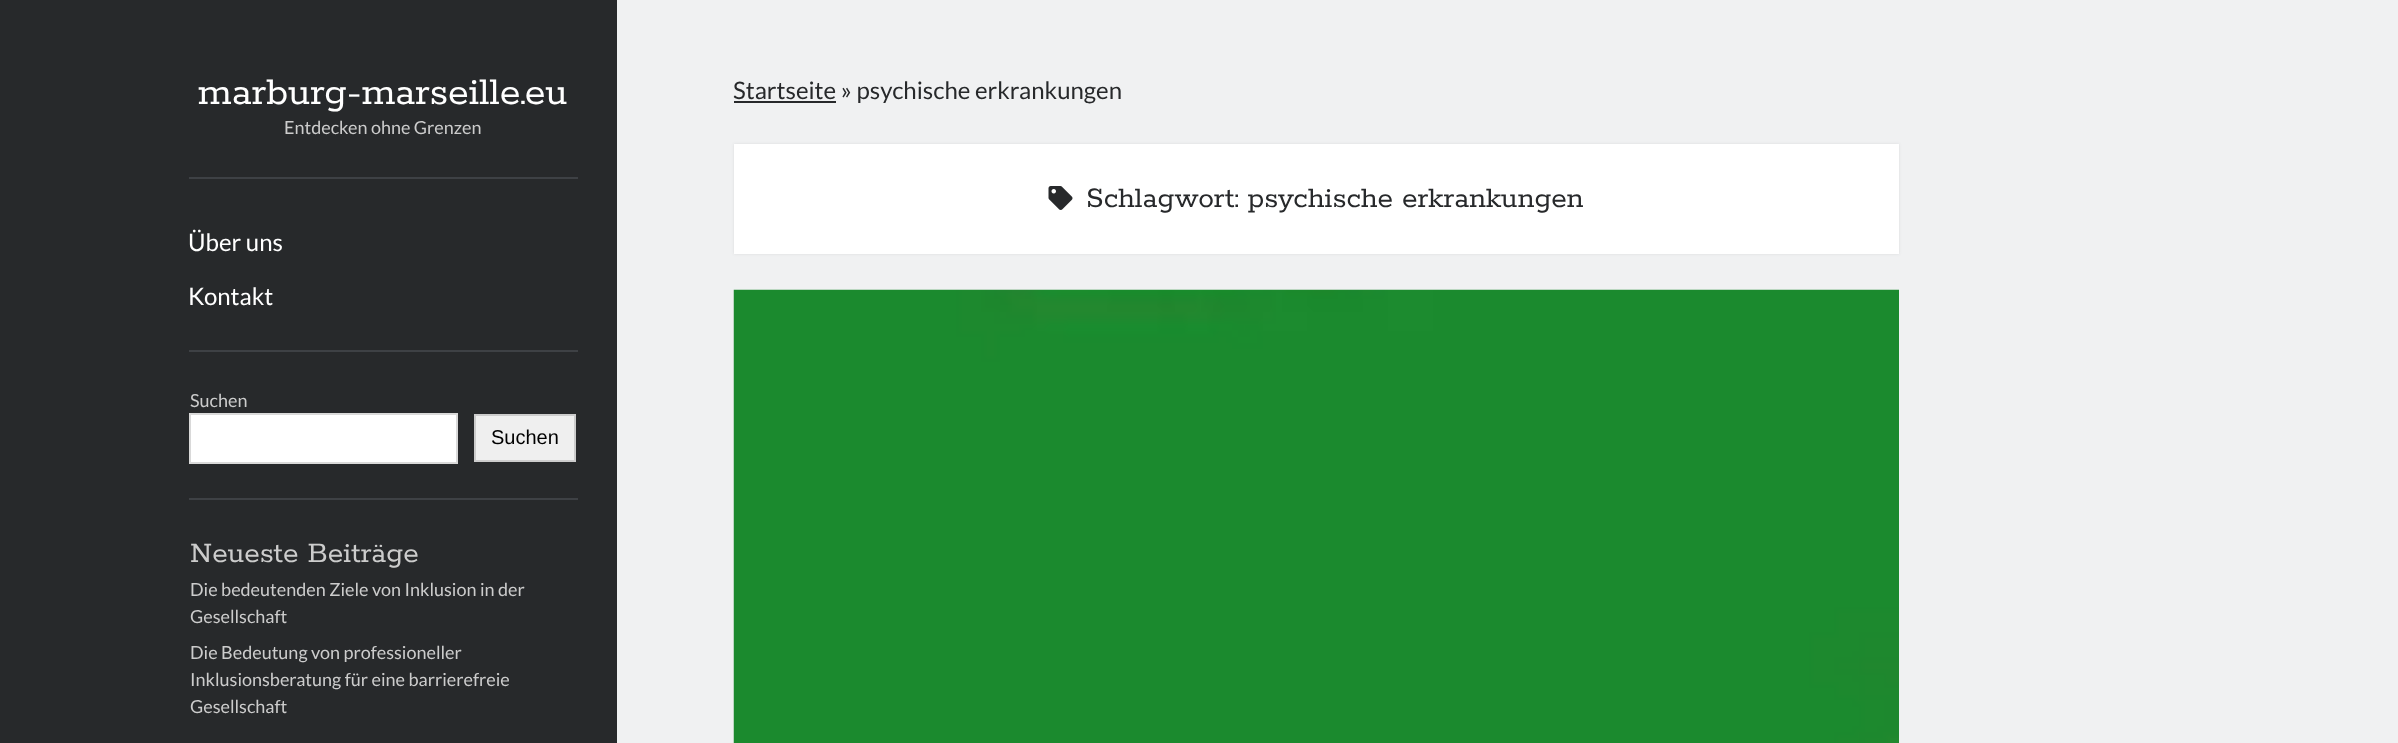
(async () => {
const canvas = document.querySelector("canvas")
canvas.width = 2398
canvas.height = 743
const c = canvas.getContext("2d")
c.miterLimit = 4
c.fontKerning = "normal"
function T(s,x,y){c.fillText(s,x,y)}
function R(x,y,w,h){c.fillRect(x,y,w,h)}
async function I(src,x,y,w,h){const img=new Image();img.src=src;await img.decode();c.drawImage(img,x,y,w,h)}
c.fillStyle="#27292b"
R(0,0,2398,743)
c.fillStyle="#f0f1f2"
R(617,0,1781,743)
c.font="42px Rokkitt"
c.fillStyle="#fff"
T("marburg-marseille.eu",198,104)
c.font="18px Lato"
c.fillStyle="#ccc"
T("Entdecken ohne Grenzen",284,134)
c.fillStyle="#3e4145"
R(189,177,389,2)
c.font="24px Lato"
c.fillStyle="#fff"
T("Über uns",188,251)
T("Kontakt",188,305)
c.fillStyle="#3e4145"
R(189,350,389,2)
c.font="18px Lato"
c.fillStyle="#ccc"
T("Suchen",190,407)
c.fillStyle="#fff"
c.beginPath()
c.rect(190,414,267,49)
c.fill()
c.strokeStyle="#d9d9d9"
c.lineWidth=2
c.stroke()
c.fillStyle="#efefef"
c.beginPath()
c.rect(475,415,100,46)
c.fill()
c.strokeStyle="#ccc"
c.stroke()
c.font="20px Liberation Sans"
c.fillStyle="#000"
T("Suchen",491,444)
c.fillStyle="#3e4145"
R(189,498,389,2)
c.font="31.5px Rokkitt"
c.fillStyle="#ccc"
T("Neueste Beiträge",190,562)
c.font="18px Lato"
T("Die bedeutenden Ziele von Inklusion in der",190,596)
T("Gesellschaft",190,623)
T("Die Bedeutung von professioneller",190,659)
T("Inklusionsberatung für eine barrierefreie",190,686)
T("Gesellschaft",190,713)
c.fillStyle="#27292b"
R(734,101,102,2)
c.font="24px Lato"
T("Startseite » psychische erkrankungen",733,99)
c.fillStyle="#272b2f1a"
c.filter="blur(1.5px)"
c.beginPath()
c.rect(734,144,1165,110)
c.fill()
c.filter="none"
c.fillStyle="#fff"
R(734,144,1165,110)
await I("1.png",1048,186,25,24)
c.font="31.5px Rokkitt"
c.fillStyle="#27292b"
T("Schlagwort: psychische erkrankungen",1086,207)
await I("2.png",733,289,1166,454)
})()
